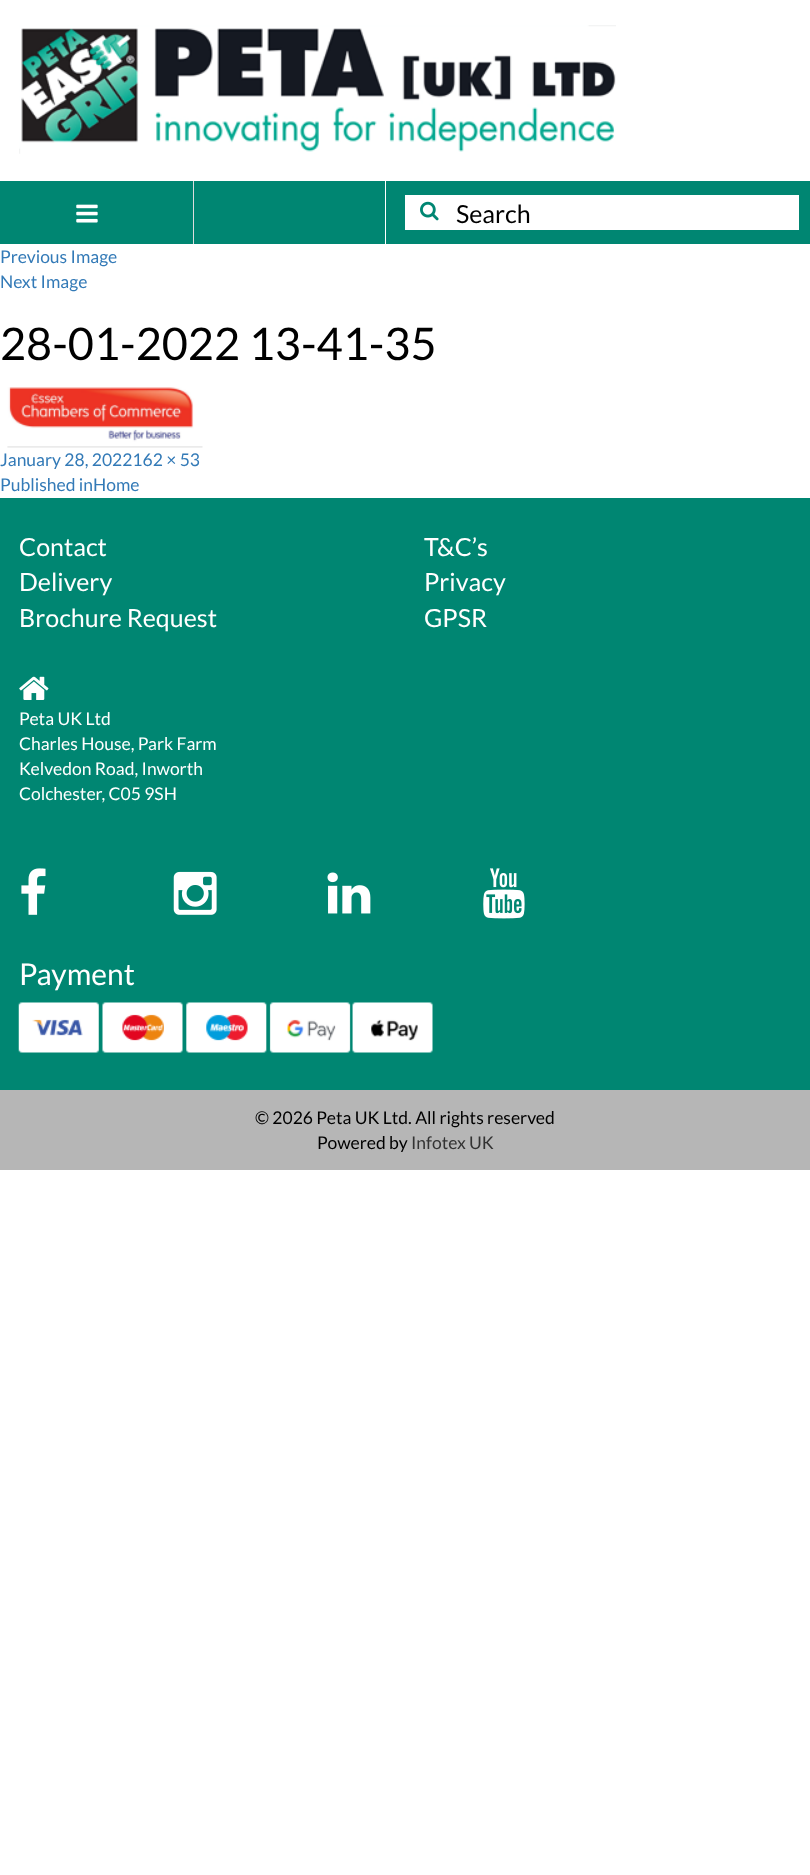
(async () => {
const canvas = document.querySelector("canvas")
canvas.width = 810
canvas.height = 1875
const c = canvas.getContext("2d")
c.miterLimit = 4
c.fontKerning = "normal"
function T(s,x,y){c.fillText(s,x,y)}
function R(x,y,w,h){c.fillRect(x,y,w,h)}
async function I(src,x,y,w,h){const img=new Image();img.src=src;await img.decode();c.drawImage(img,x,y,w,h)}
c.fillStyle="#fff"
R(0,0,810,1875)
await I("1.png",19,25,597,129)
c.fillStyle="#008672"
R(0,181,810,63)
c.fillStyle="#ddd"
R(193,181,1,63)
await I("2.png",76,204,22,19)
c.fillStyle="#fff"
R(385,181,1,63)
R(405,195,394,35)
await I("3.png",420,201,19,20)
c.font="25px Lato"
c.fillStyle="#000"
T("Search",456,223)
c.font="17.5px Lato"
c.fillStyle="#337ab7"
T("Previous Image",0,263)
T("Next Image",0,288)
c.font="45px Lato"
c.fillStyle="#000"
T("28-01-2022 13-41-35",0,360)
await I("4.png",7,387,196,61)
c.font="17.5px Lato"
c.fillStyle="#337ab7"
T("January 28, 2022162 × 53",0,466)
T("Published inHome",0,491)
c.fillStyle="#008672"
R(0,498,810,592)
c.font="25px Lato"
c.fillStyle="#fff"
T("Contact",19,556)
T("Delivery",19,591)
T("Brochure Request",19,627)
T("T&C’s",424,556)
T("Privacy",424,591)
T("GPSR",424,627)
await I("5.png",19,676,30,24)
c.font="17.5px Lato"
T("Peta UK Ltd",19,725)
T("Charles House, Park Farm",19,750)
T("Kelvedon Road, Inworth",19,775)
T("Colchester, C05 9SH",19,800)
await I("6.png",21,868,25,47)
await I("7.png",173,871,44,44)
await I("8.png",327,872,44,42)
await I("9.png",483,868,42,51)
c.font="30px Lato"
T("Payment",19,985)
await I("10.png",18,1002,415,51)
c.fillStyle="#b6b6b6"
R(0,1090,810,80)
c.font="17.5px Lato"
c.fillStyle="#000"
T("© 2026 Peta UK Ltd. All rights reserved",255,1124)
T("Powered by",317,1149)
c.fillStyle="#333"
T("Infotex UK",411,1149)
})()
